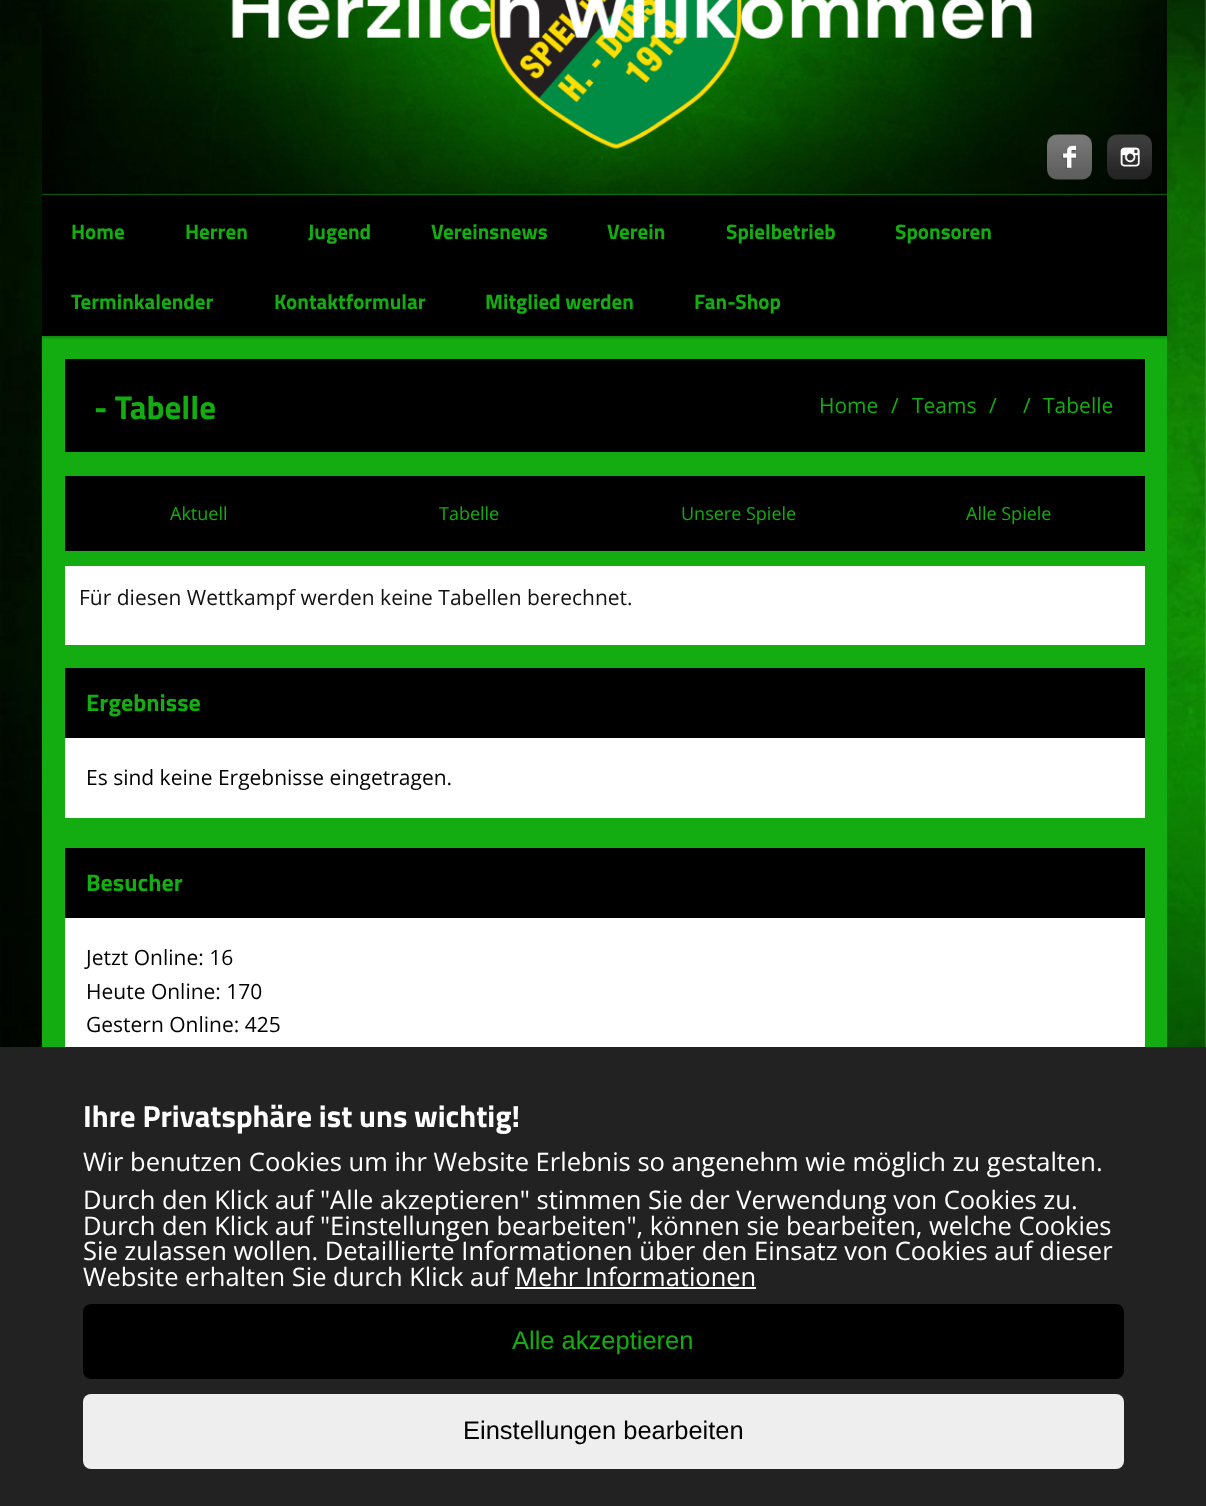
(async () => {
const canvas = document.querySelector("canvas")
canvas.width = 1206
canvas.height = 1506
const c = canvas.getContext("2d")
c.miterLimit = 4
c.fontKerning = "normal"
function T(s,x,y){c.fillText(s,x,y)}
function R(x,y,w,h){c.fillRect(x,y,w,h)}
function Q(x,y,w,h,r){c.beginPath();c.roundRect(x,y,w,h,r);c.fill()}
async function I(src,x,y,w,h){const img=new Image();img.src=src;await img.decode();c.drawImage(img,x,y,w,h)}
c.fillStyle="#fff"
R(0,0,1206,1506)
await I("1.png",0,0,1206,1047)
c.fillStyle="#14ad11"
R(42,194,1125,853)
await I("2.png",42,0,1125,195)
await I("3.png",1047,134,45,46)
await I("4.png",1107,134,45,46)
c.fillStyle="#00000033"
c.filter="blur(1px)"
c.beginPath()
c.rect(42,197,1125,141)
c.fill()
c.filter="none"
c.fillStyle="#000"
R(42,195,1125,141)
c.font="bold 21px Titillium Web"
c.fillStyle="#14ad11"
T("Home",71,239)
T("Herren",185,239)
T("Jugend",308,239)
T("Vereinsnews",431,239)
T("Verein",607,239)
T("Spielbetrieb",726,239)
T("Sponsoren",895,239)
T("Terminkalender",71,309)
T("Kontaktformular",274,309)
T("Mitglied werden",485,309)
T("Fan-Shop",694,309)
c.fillStyle="#000"
R(65,359,1080,93)
c.font="bold 33px Titillium Web"
c.fillStyle="#14ad11"
T("- Tabelle",94,419)
c.font="21px Open Sans"
T("Home",819,413)
T("/",891,413)
T("Teams",912,413)
T("/",989,413)
T("/",1023,413)
T("Tabelle",1043,413)
c.fillStyle="#000"
R(65,476,1080,75)
c.font="18px Open Sans"
c.fillStyle="#14ad11"
T("Aktuell",170,520)
T("Tabelle",439,520)
T("Unsere Spiele",681,520)
T("Alle Spiele",966,520)
c.fillStyle="#fff"
R(65,566,1080,79)
c.font="21px Open Sans"
c.fillStyle="#111"
T("Für diesen Wettkampf werden keine Tabellen berechnet.",79,605)
c.fillStyle="#fff"
R(65,738,1080,80)
c.fillStyle="#000"
R(65,668,1080,70)
c.font="bold 24px Titillium Web"
c.fillStyle="#14ad11"
T("Ergebnisse",86,711)
c.font="21px Open Sans"
c.fillStyle="#000"
T("Es sind keine Ergebnisse eingetragen.",86,785)
c.fillStyle="#fff"
R(65,918,1080,129)
c.fillStyle="#000"
R(65,848,1080,70)
c.font="bold 24px Titillium Web"
c.fillStyle="#14ad11"
T("Besucher",86,891)
c.font="21px Open Sans"
c.fillStyle="#000"
T("Jetzt Online: 16",86,965)
T("Heute Online: 170",86,999)
T("Gestern Online: 425",86,1032)
c.fillStyle="#222"
R(0,1047,1206,459)
c.font="bold 30.6px Titillium Web"
c.fillStyle="#fff"
T("Ihre Privatsphäre ist uns wichtig!",83,1127)
c.font="25.5px Open Sans"
T("Wir benutzen Cookies um ihr Website Erlebnis so angenehm wie möglich zu gestalten.",83,1171)
T("Durch den Klick auf \"Alle akzeptieren\" stimmen Sie der Verwendung von Cookies zu.",83,1209)
T("Durch den Klick auf \"Einstellungen bearbeiten\", können sie bearbeiten, welche Cookies",83,1235)
T("Sie zulassen wollen. Detaillierte Informationen über den Einsatz von Cookies auf dieser",83,1260)
T("Website erhalten Sie durch Klick auf Mehr Informationen",83,1286)
R(515,1287,241,2)
c.fillStyle="#000"
Q(83,1304,1041,75,8)
c.font="25.5px Liberation Sans"
c.fillStyle="#14ad11"
T("Alle akzeptieren",512,1349)
c.fillStyle="#eee"
Q(83,1394,1041,75,8)
c.fillStyle="#000"
T("Einstellungen bearbeiten",463,1439)
})()
